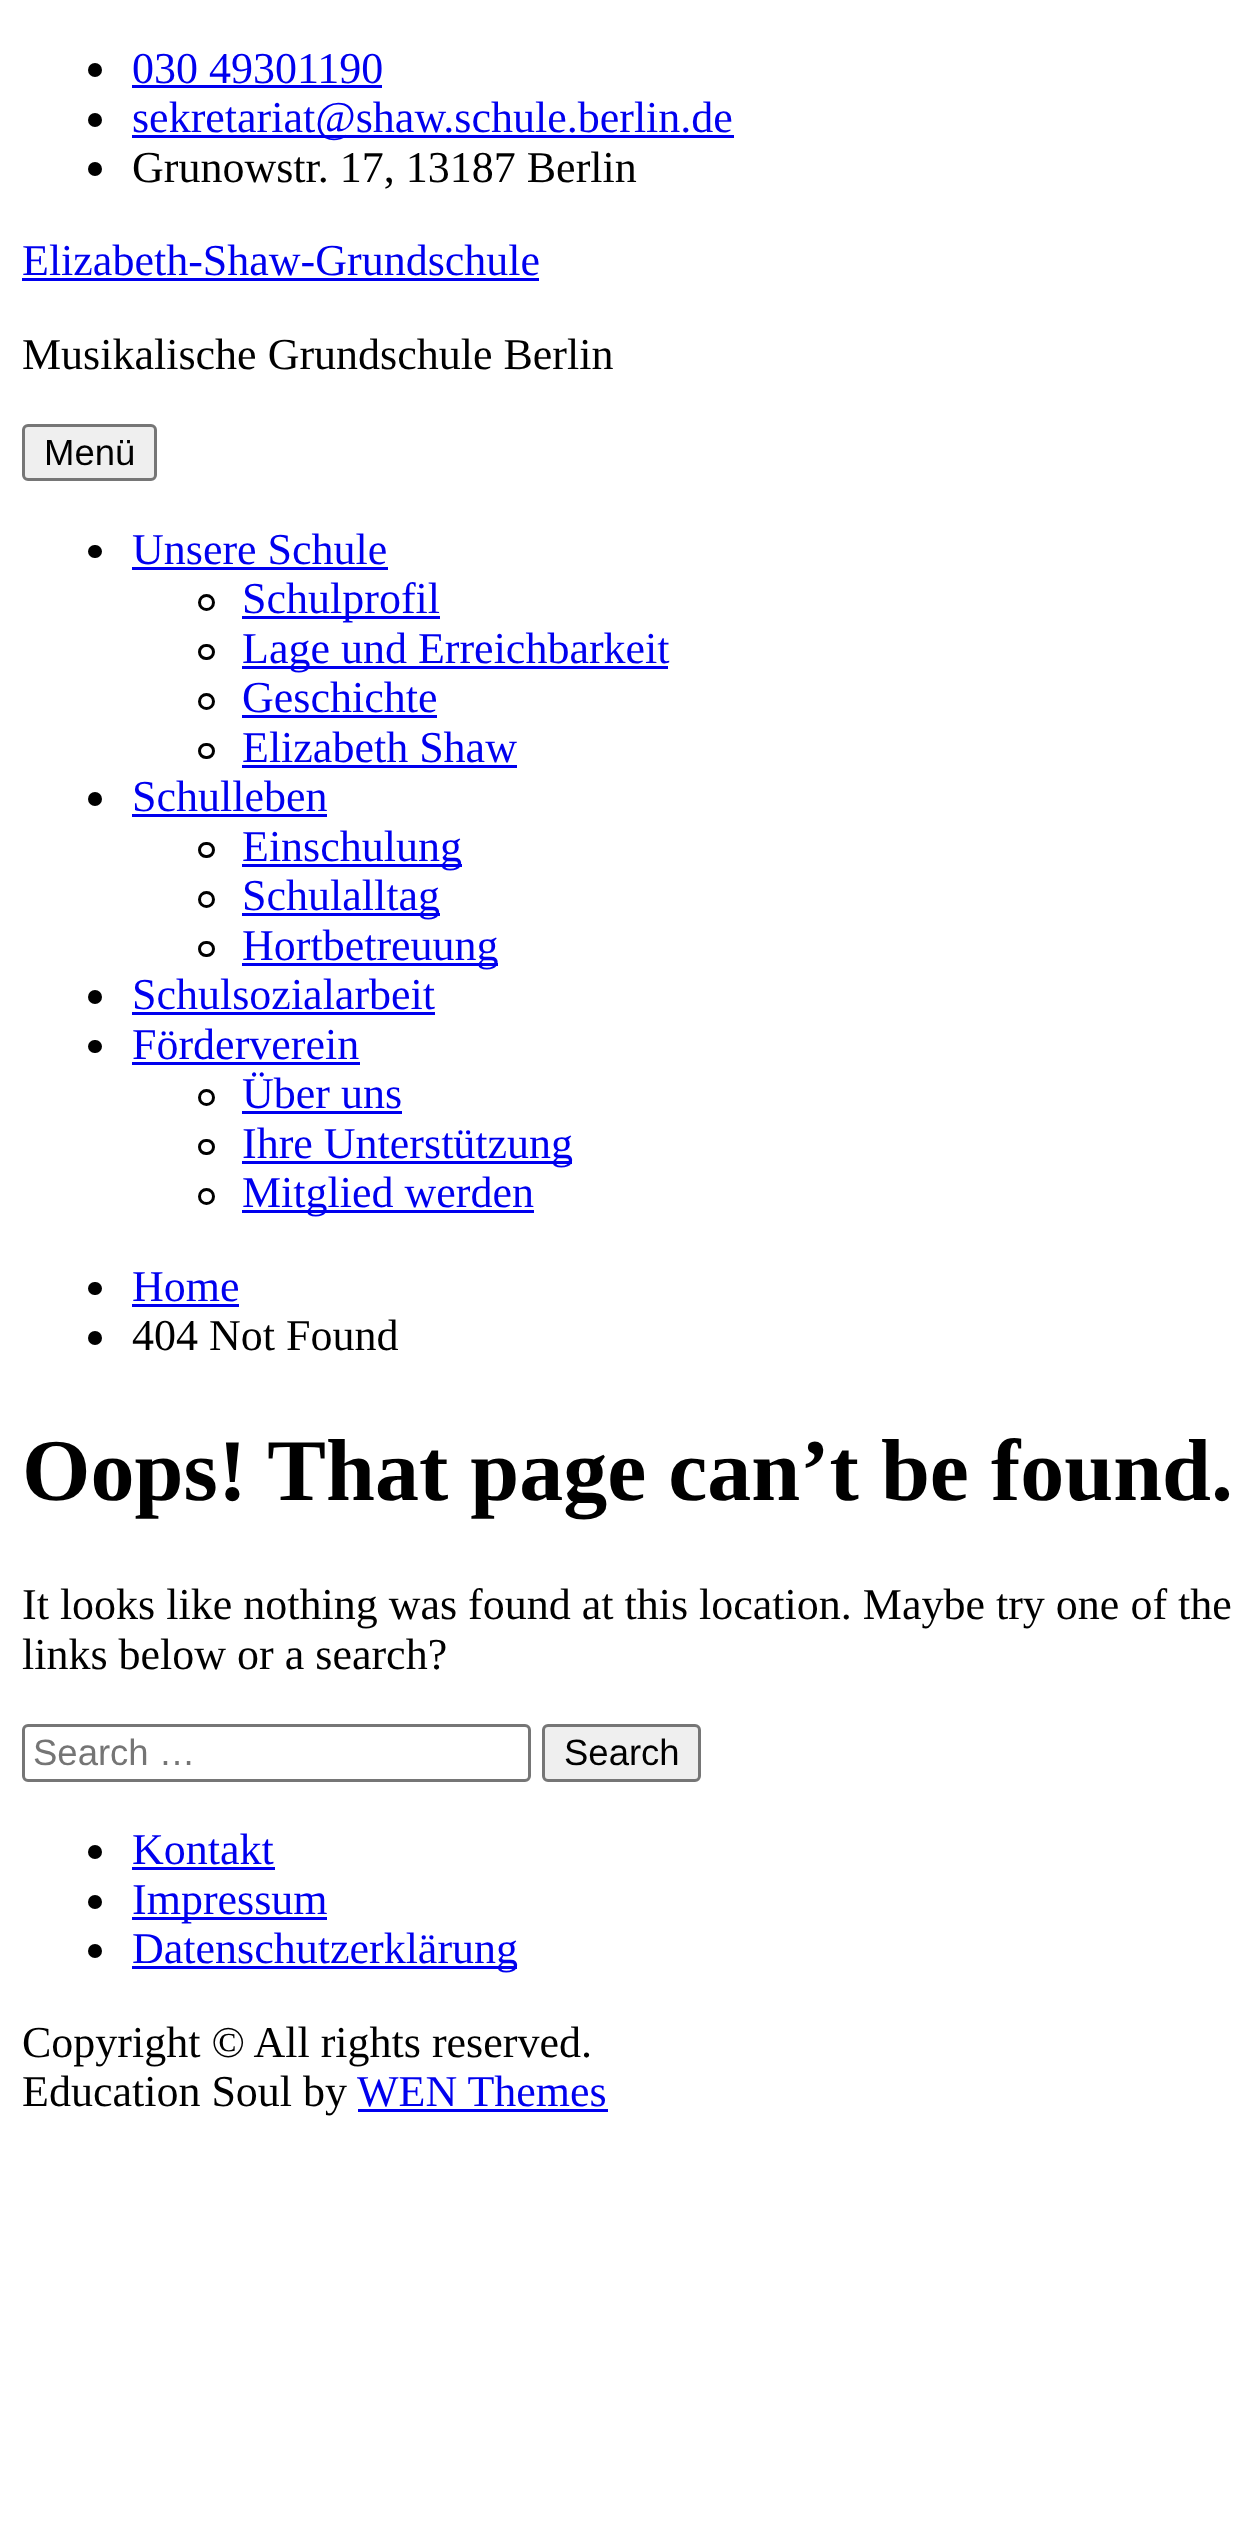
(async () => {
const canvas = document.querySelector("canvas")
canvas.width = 1255
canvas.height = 2526
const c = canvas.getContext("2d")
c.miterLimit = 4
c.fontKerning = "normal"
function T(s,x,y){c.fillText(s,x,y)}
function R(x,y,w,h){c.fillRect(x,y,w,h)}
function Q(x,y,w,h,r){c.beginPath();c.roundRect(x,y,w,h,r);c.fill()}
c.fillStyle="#fff"
R(0,0,1255,2526)
c.fillStyle="#000"
c.beginPath()
c.arc(95,70,7,0,7)
c.fill()
c.font="44px Liberation Serif"
c.fillStyle="#00e"
T("030 49301190",132,83)
R(132,85,250,3)
c.fillStyle="#000"
c.beginPath()
c.arc(95,120,7,0,7)
c.fill()
c.fillStyle="#00e"
R(132,135,602,3)
T("sekretariat@shaw.schule.berlin.de",132,132)
c.fillStyle="#000"
c.beginPath()
c.arc(95,169,7,0,7)
c.fill()
T("Grunowstr. 17, 13187 Berlin",132,182)
c.fillStyle="#00e"
T("Elizabeth-Shaw-Grundschule",22,275)
R(22,278,517,3)
c.fillStyle="#000"
T("Musikalische Grundschule Berlin",22,369)
c.fillStyle="#efefef"
c.beginPath()
c.roundRect(23.5,425.5,132,54,4.5)
c.fill()
c.strokeStyle="#767676"
c.lineWidth=3
c.stroke()
c.font="36.5px Liberation Sans"
c.fillStyle="#000"
T("Menü",44,465)
Q(88,545,14,13,6.5)
c.font="44px Liberation Serif"
c.fillStyle="#00e"
T("Unsere Schule",132,564)
R(132,567,256,3)
c.beginPath()
c.arc(206.5,602.5,7,0,7)
c.strokeStyle="#000"
c.stroke()
R(242,616,198,3)
T("Schulprofil",242,613)
c.beginPath()
c.roundRect(199.5,645.5,14,13,6.5)
c.stroke()
R(242,666,426,3)
T("Lage und Erreichbarkeit",242,663)
c.beginPath()
c.arc(206.5,701.5,7,0,7)
c.stroke()
T("Geschichte",242,712)
R(242,715,195,3)
c.beginPath()
c.roundRect(199.5,744.5,14,13,6.5)
c.stroke()
T("Elizabeth Shaw",242,762)
R(242,765,275,3)
c.fillStyle="#000"
c.beginPath()
c.arc(95,799,7,0,7)
c.fill()
c.fillStyle="#00e"
T("Schulleben",132,811)
R(132,814,195,3)
c.beginPath()
c.roundRect(199.5,843.5,14,13,6.5)
c.stroke()
R(242,864,220,3)
T("Einschulung",242,861)
c.beginPath()
c.arc(206.5,899.5,7,0,7)
c.stroke()
R(242,913,198,3)
T("Schulalltag",242,910)
c.beginPath()
c.roundRect(199.5,942.5,14,13,6.5)
c.stroke()
R(242,963,256,3)
T("Hortbetreuung",242,960)
c.fillStyle="#000"
c.beginPath()
c.arc(95,997,7,0,7)
c.fill()
c.fillStyle="#00e"
T("Schulsozialarbeit",132,1009)
R(132,1012,303,3)
c.fillStyle="#000"
Q(88,1040,14,13,6.5)
c.fillStyle="#00e"
T("Förderverein",132,1059)
R(132,1062,228,3)
c.beginPath()
c.arc(206.5,1097.5,7,0,7)
c.stroke()
T("Über uns",242,1108)
R(242,1111,160,3)
c.beginPath()
c.roundRect(199.5,1140.5,14,13,6.5)
c.stroke()
R(242,1161,330,3)
T("Ihre Unterstützung",242,1158)
c.beginPath()
c.arc(206.5,1196.5,7,0,7)
c.stroke()
R(242,1210,292,3)
T("Mitglied werden",242,1207)
c.fillStyle="#000"
Q(88,1282,14,13,6.5)
c.fillStyle="#00e"
T("Home",132,1301)
R(132,1304,107,3)
c.fillStyle="#000"
c.beginPath()
c.arc(95,1338,7,0,7)
c.fill()
T("404 Not Found",132,1350)
c.font="bold 88px Liberation Serif"
T("Oops! That page can’t be found.",22,1500)
c.font="44px Liberation Serif"
T("It looks like nothing was found at this location. Maybe try one of the",22,1619)
T("links below or a search?",22,1669)
c.beginPath()
c.roundRect(23.5,1725.5,506,55,4.5)
c.strokeStyle="#767676"
c.stroke()
c.font="36.5px Liberation Sans"
c.fillStyle="#757575"
T("Search …",33,1765)
c.fillStyle="#efefef"
c.beginPath()
c.roundRect(543.5,1725.5,156,55,4.5)
c.fill()
c.stroke()
c.fillStyle="#000"
T("Search",564,1765)
c.beginPath()
c.arc(95,1852,7,0,7)
c.fill()
c.font="44px Liberation Serif"
c.fillStyle="#00e"
T("Kontakt",132,1864)
R(132,1867,143,3)
c.fillStyle="#000"
c.beginPath()
c.arc(95,1902,7,0,7)
c.fill()
c.fillStyle="#00e"
R(132,1917,195,3)
T("Impressum",132,1914)
c.fillStyle="#000"
c.beginPath()
c.arc(95,1951,7,0,7)
c.fill()
c.fillStyle="#00e"
R(132,1966,385,3)
T("Datenschutzerklärung",132,1963)
c.fillStyle="#000"
T("Copyright © All rights reserved.",22,2057)
T("Education Soul by",22,2106)
c.fillStyle="#00e"
T("WEN Themes",357,2106)
R(358,2109,250,3)
})()
